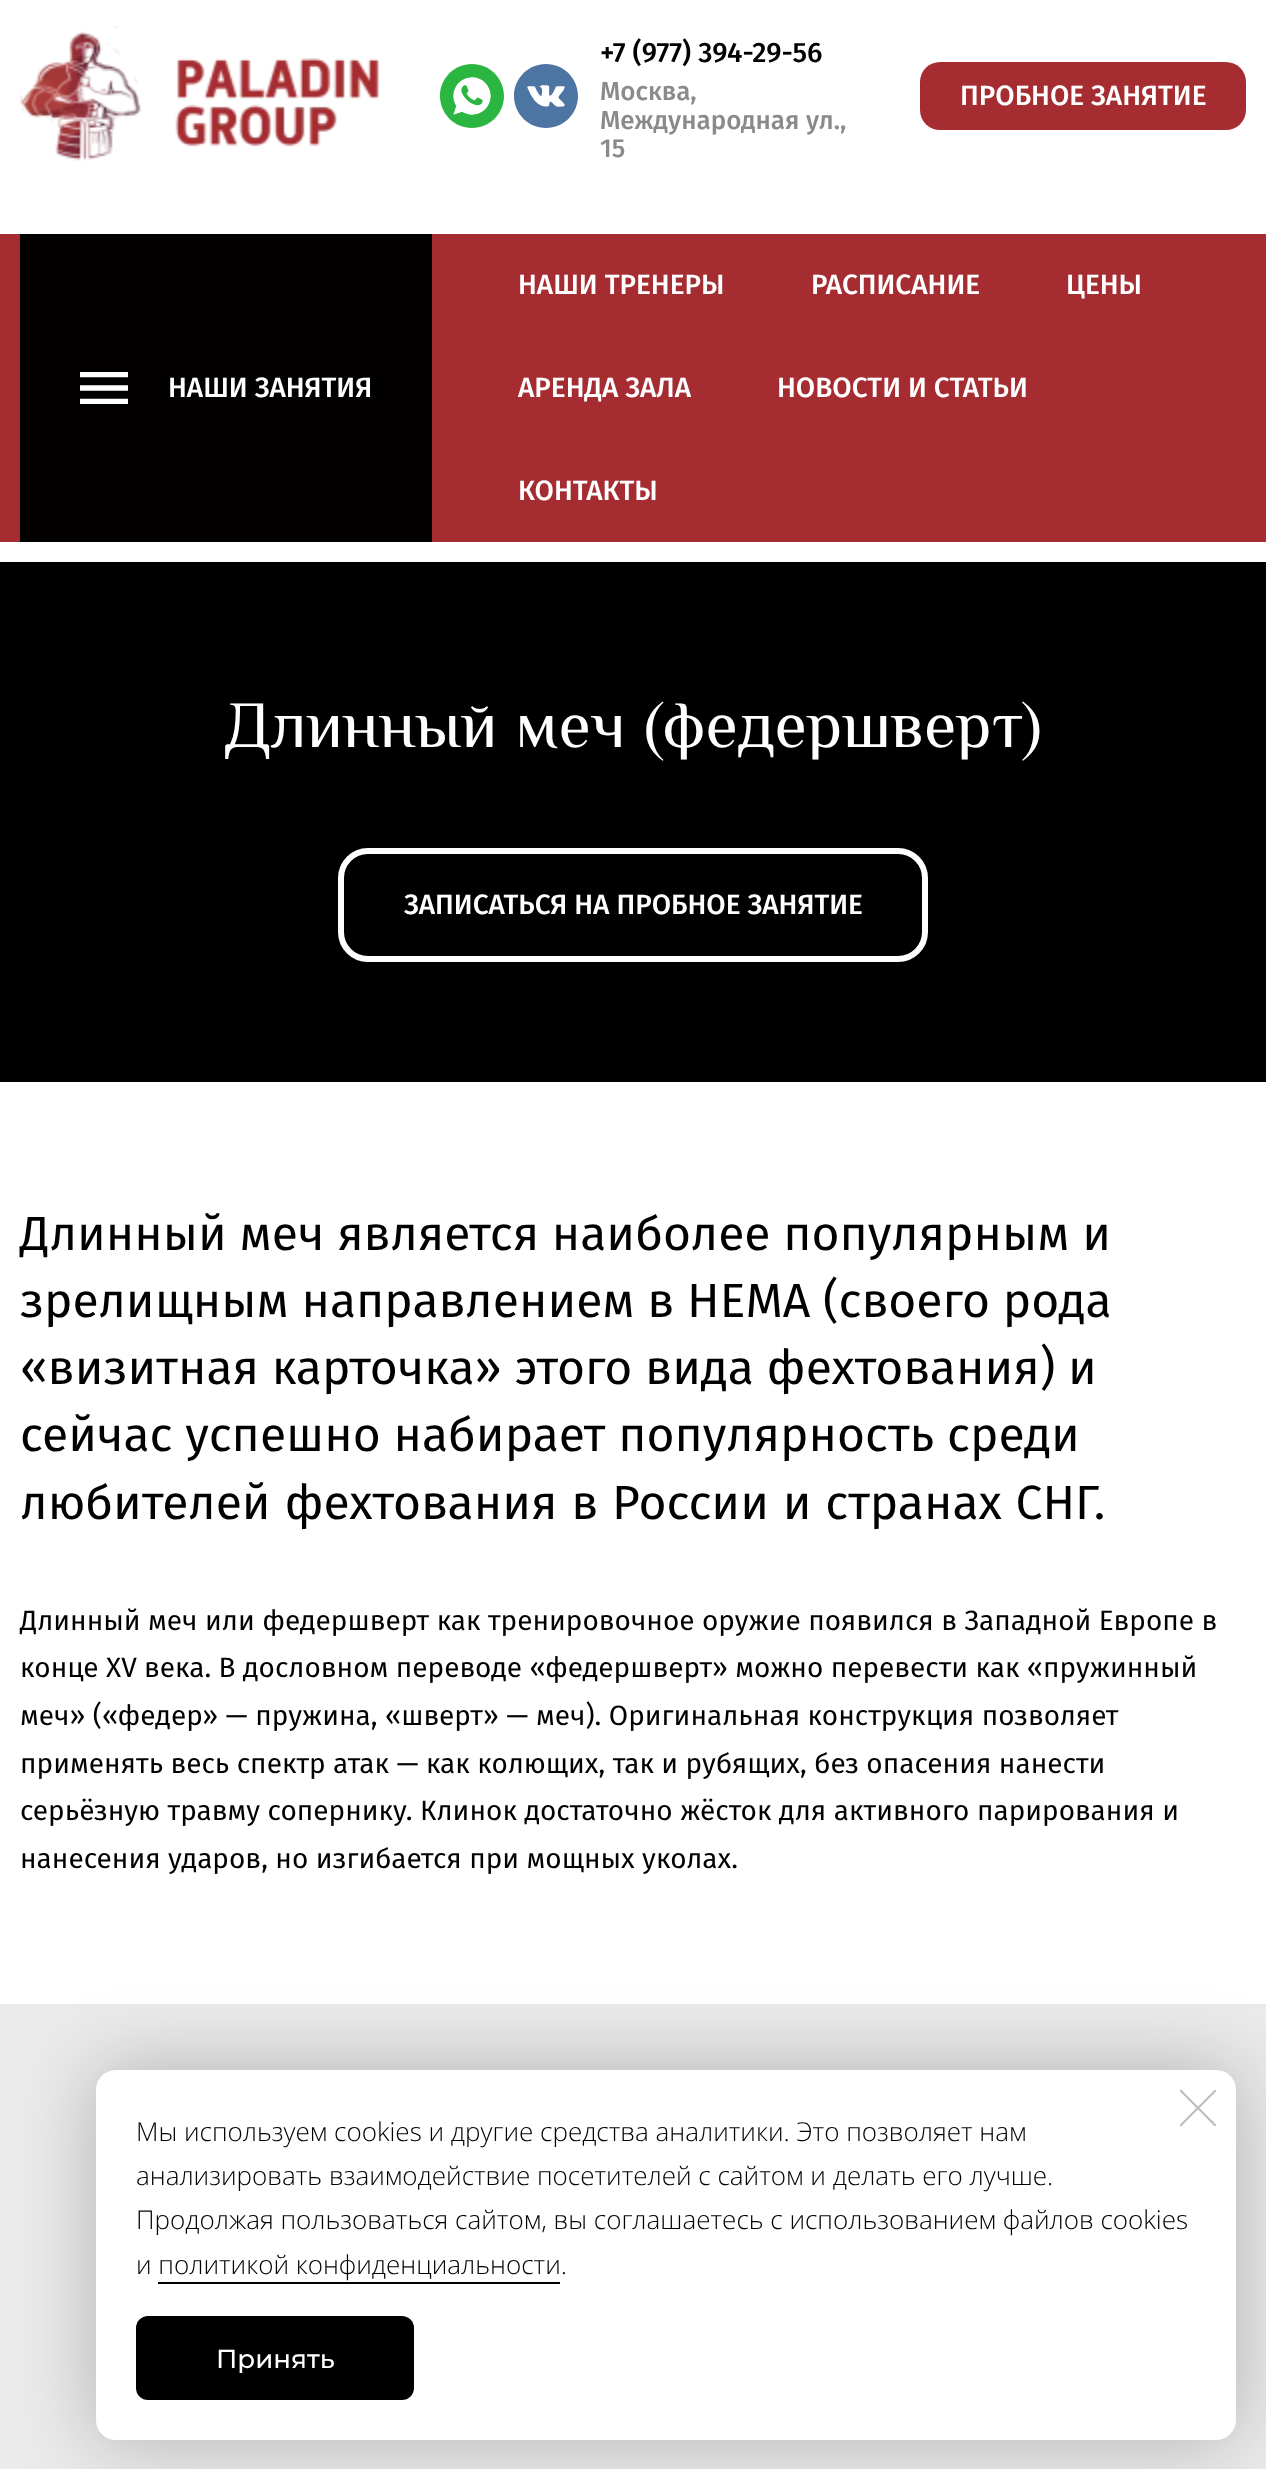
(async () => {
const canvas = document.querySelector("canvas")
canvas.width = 1266
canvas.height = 2469
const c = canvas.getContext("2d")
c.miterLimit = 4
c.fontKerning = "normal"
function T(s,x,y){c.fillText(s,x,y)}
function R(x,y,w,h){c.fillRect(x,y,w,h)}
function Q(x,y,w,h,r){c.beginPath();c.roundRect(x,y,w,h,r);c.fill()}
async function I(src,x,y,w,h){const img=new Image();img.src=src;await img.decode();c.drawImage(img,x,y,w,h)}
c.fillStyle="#fff"
R(0,0,1266,2469)
await I("1.png",20,26,360,135)
await I("2.png",440,64,64,64)
await I("3.png",514,64,64,64)
c.font="500 28px Fira Sans"
c.fillStyle="#000"
T("+7 (977) 394-29-56",600,62)
c.font="500 26px Fira Sans"
c.fillStyle="#8a8a8a"
T("Москва,",600,100)
T("Международная ул.,",600,129)
T("15",600,157)
c.fillStyle="#a52d32"
Q(920,62,326,68,20)
c.font="500 28px Fira Sans"
c.fillStyle="#fff"
T("ПРОБНОЕ ЗАНЯТИЕ",960,105)
c.fillStyle="#a52d32"
R(0,234,1266,308)
c.fillStyle="#030000"
R(20,234,412,308)
await I("4.png",80,372,48,32)
c.fillStyle="#fff"
T("НАШИ ЗАНЯТИЯ",168,397)
T("НАШИ ТРЕНЕРЫ",518,294)
T("РАСПИСАНИЕ",811,294)
T("ЦЕНЫ",1066,294)
T("АРЕНДА ЗАЛА",518,397)
T("НОВОСТИ И СТАТЬИ",777,397)
T("КОНТАКТЫ",518,500)
c.fillStyle="#000"
R(0,562,1266,520)
c.wordSpacing="2px"
c.font="66px Philosopher"
c.fillStyle="#fff"
T("Длинный меч (федершверт)",225,747)
c.beginPath()
c.roundRect(341,851,584,108,27)
c.strokeStyle="#fff"
c.lineWidth=6
c.stroke()
c.wordSpacing="0px"
c.font="500 28px Fira Sans"
T("ЗАПИСАТЬСЯ НА ПРОБНОЕ ЗАНЯТИЕ",404,914)
c.font="48px Fira Sans"
c.fillStyle="#000"
T("Длинный меч является наиболее популярным и",20,1250)
T("зрелищным направлением в НЕМА (своего рода",20,1317)
T("«визитная карточка» этого вида фехтования) и",20,1384)
T("сейчас успешно набирает популярность среди",20,1451)
c.wordSpacing="1px"
T("любителей фехтования в России и странах СНГ.",20,1519)
c.wordSpacing="0px"
c.font="28px Fira Sans"
T("Длинный меч или федершверт как тренировочное оружие появился в Западной Европе в",20,1630)
T("конце XV века. В дословном переводе «федершверт» можно перевести как «пружинный",20,1677)
c.wordSpacing="0.1px"
T("меч» («федер» — пружина, «шверт» — меч). Оригинальная конструкция позволяет",20,1725)
c.wordSpacing="0px"
T("применять весь спектр атак — как колющих, так и рубящих, без опасения нанести",20,1773)
c.wordSpacing="0.1px"
T("серьёзную травму сопернику. Клинок достаточно жёсток для активного парирования и",20,1820)
c.wordSpacing="0px"
T("нанесения ударов, но изгибается при мощных уколах.",20,1868)
c.fillStyle="#ebebeb"
R(0,2004,1266,465)
c.fillStyle="#00000040"
c.filter="blur(40px)"
c.beginPath()
c.roundRect(96,2070,1140,370,20)
c.fill()
c.filter="none"
c.fillStyle="#fff"
Q(96,2070,1140,370,20)
await I("5.png",1180,2090,36,36)
c.font="300 26px Open Sans"
c.fillStyle="#000"
T("Мы используем cookies и другие средства аналитики. Это позволяет нам",136,2141)
T("анализировать взаимодействие посетителей с сайтом и делать его лучше.",136,2185)
T("Продолжая пользоваться сайтом, вы соглашаетесь с использованием файлов cookies",136,2229)
T("и политикой конфиденциальности.",136,2274)
R(158,2282,402,2)
Q(136,2316,278,84,12)
c.font="500 26px Montserrat"
c.fillStyle="#fff"
T("Принять",216,2368)
})()
